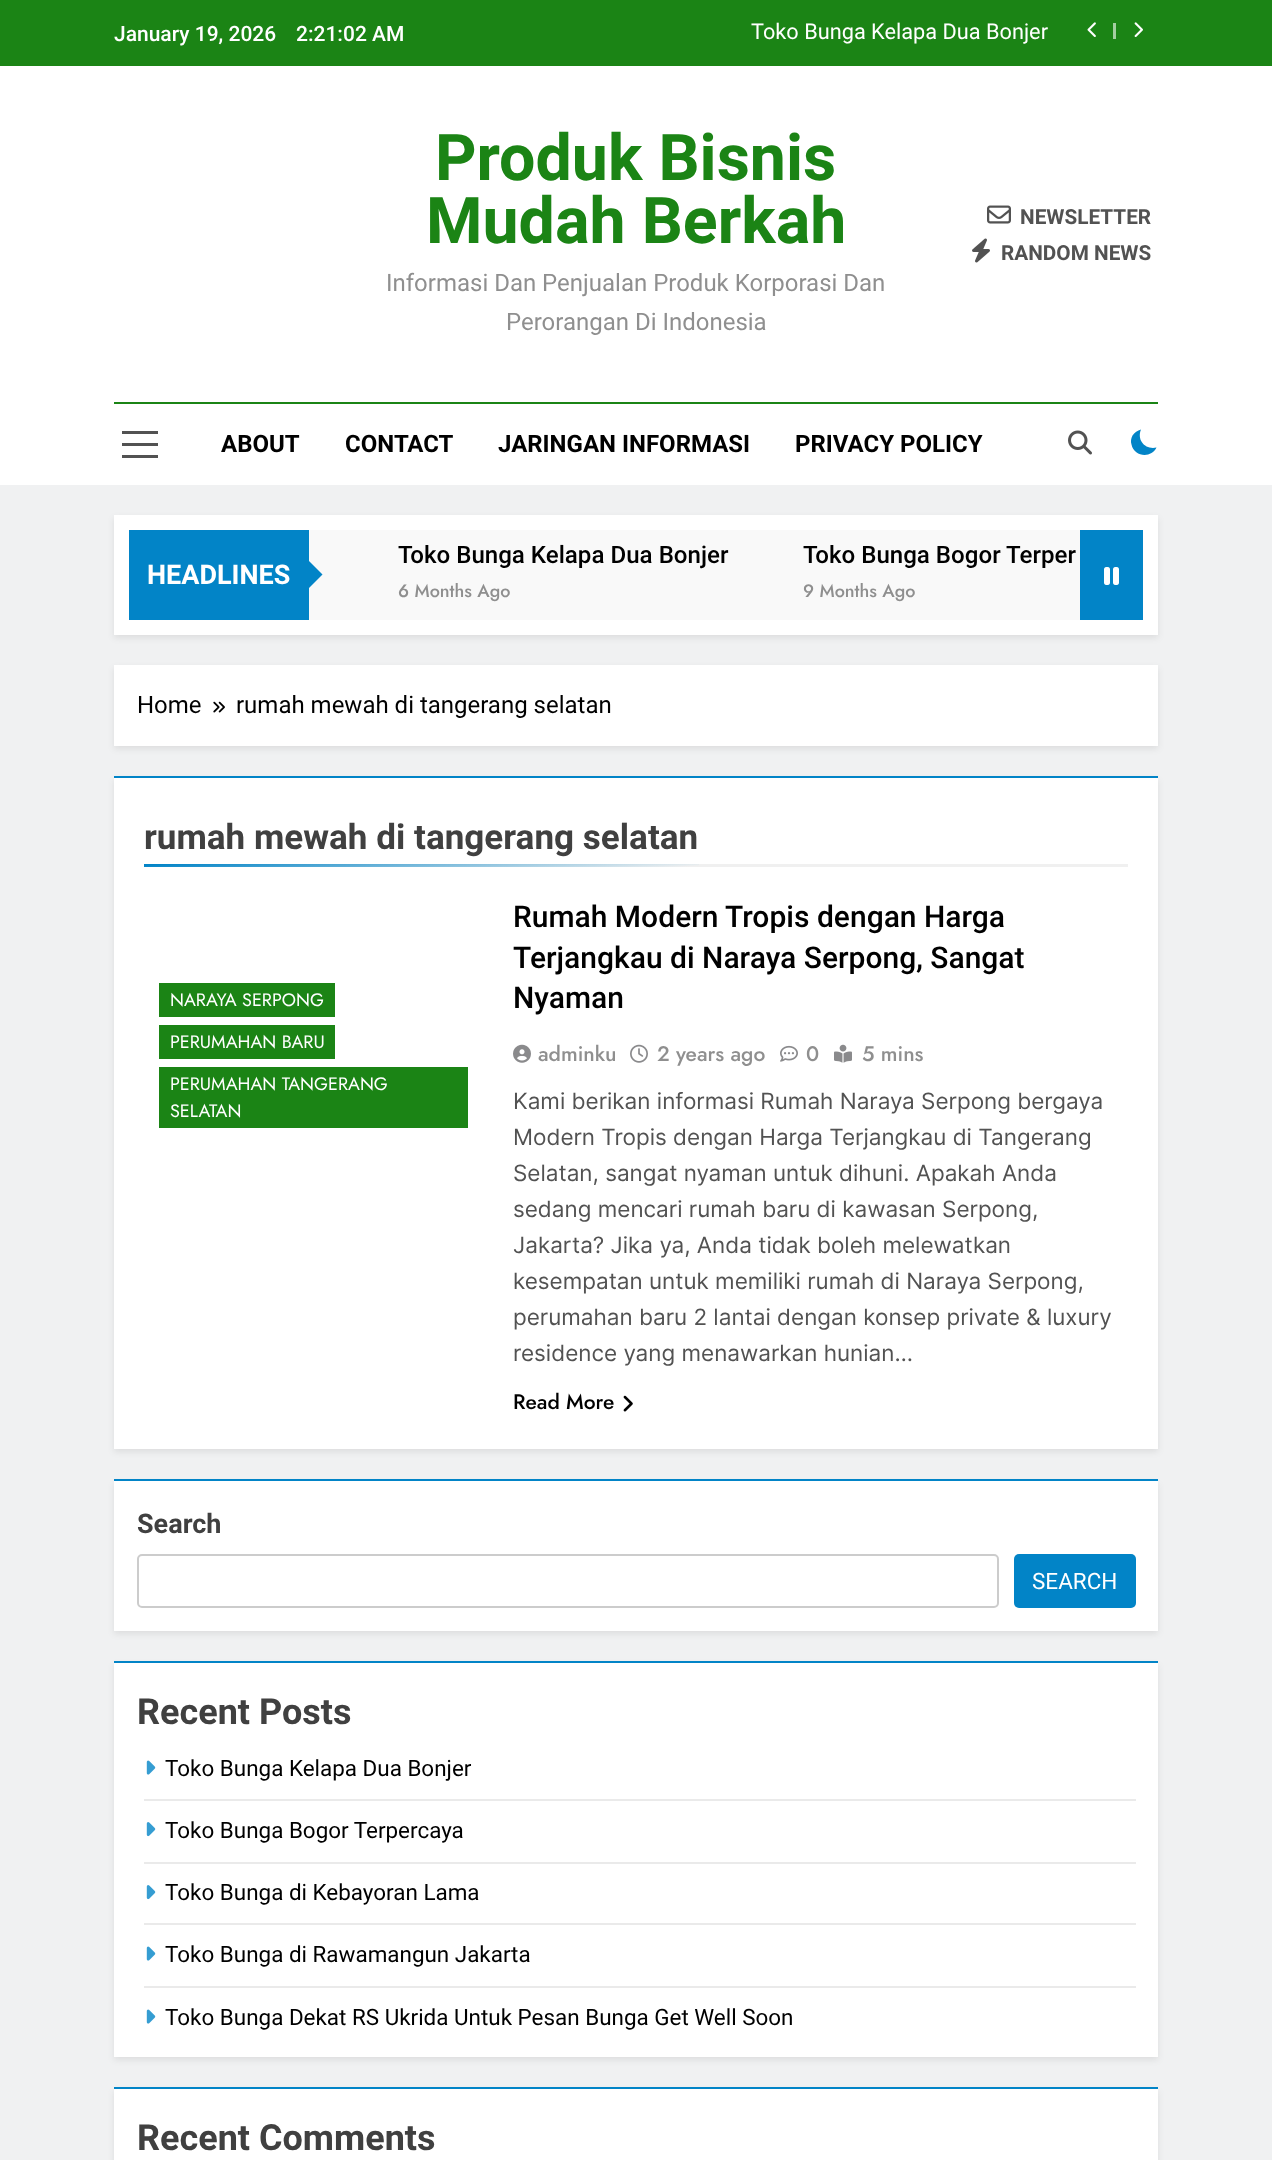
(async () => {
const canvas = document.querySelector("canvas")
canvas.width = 1272
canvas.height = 2160
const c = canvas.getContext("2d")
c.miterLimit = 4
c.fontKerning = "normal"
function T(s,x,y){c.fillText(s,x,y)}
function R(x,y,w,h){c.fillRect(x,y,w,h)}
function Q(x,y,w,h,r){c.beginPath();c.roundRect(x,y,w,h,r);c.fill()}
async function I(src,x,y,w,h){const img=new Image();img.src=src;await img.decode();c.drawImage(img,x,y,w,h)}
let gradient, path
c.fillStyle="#f0f1f2"
R(0,0,1272,2160)
c.fillStyle="#1b8415"
R(0,0,1272,66)
c.font="500 21px Roboto"
c.fillStyle="#fff"
T("January 19, 2026",114,41)
T("2:21:02 AM",296,41)
c.font="21.75px Roboto"
T("Toko Bunga Kelapa Dua Bonjer",751,39)
await I("1.png",1087,22,9,15)
c.fillStyle="#a4cea1"
R(1113,23,3,16)
await I("2.png",1134,22,9,15)
c.fillStyle="#fff"
R(0,66,1272,419)
c.font="bold 64.5px Roboto"
c.fillStyle="#1b8415"
T("Produk Bisnis",435,180)
T("Mudah Berkah",426,243)
c.font="24px Roboto"
c.fillStyle="#8f8f8f"
T("Informasi Dan Penjualan Produk Korporasi Dan",386,291)
T("Perorangan Di Indonesia",506,330)
await I("3.png",987,205,24,19)
c.font="bold 20.75px Roboto"
c.fillStyle="#525252"
T("NEWSLETTER",1020,224)
await I("4.png",972,238,18,25)
T("RANDOM NEWS",1001,260)
c.fillStyle="#1b8415"
R(114,402,1044,2)
c.fillStyle="#525252"
R(122,431,36,3)
R(122,443,36,3)
R(122,455,36,3)
c.font="bold 24px Roboto"
c.fillStyle="#000"
T("ABOUT",221,452)
T("CONTACT",345,452)
T("JARINGAN INFORMASI",498,452)
T("PRIVACY POLICY",795,452)
await I("5.png",1068,430,24,25)
c.fillStyle="#0284c7"
path = new Path2D("M1156.5 447.5c-11 2.5-20-7-15.5-18c-3.5 1-6.5 3-8.5 6c-1.5 3-2 6-1 9c2.5 12.5 20 14 25 3z")
c.fill(path)
c.fillStyle="#00000014"
c.filter="blur(3px)"
c.beginPath()
c.rect(114,518,1044,120)
c.fill()
c.filter="none"
c.fillStyle="#fff"
R(114,515,1044,120)
c.fillStyle="#0284c7"
R(129,530,180,90)
c.font="bold 27px Roboto"
c.fillStyle="#fff"
T("HEADLINES",147,584)
c.fillStyle="#f9f9f9"
R(309,530,771,90)
c.fillStyle="#0284c7"
path = new Path2D("M307.5 589.5v-30l15 15z")
c.fill(path)
c.font="500 24.1px Roboto"
c.fillStyle="#000"
T("Toko Bunga Kelapa Dua Bonjer",398,563)
c.font="500 18px Jost"
c.fillStyle="#8f8f8f"
T("6 Months Ago",398,597)
c.font="500 24.1px Roboto"
c.fillStyle="#000"
T("Toko Bunga Bogor Terper",803,563)
c.font="500 18px Jost"
c.fillStyle="#8f8f8f"
T("9 Months Ago",803,597)
c.fillStyle="#0284c7"
R(1080,530,63,90)
await I("6.png",1104,567,15,18)
c.fillStyle="#00000014"
c.filter="blur(3px)"
c.beginPath()
c.rect(114,668,1044,81)
c.fill()
c.filter="none"
c.fillStyle="#fff"
R(114,665,1044,81)
c.font="24px Roboto"
c.fillStyle="#000"
T("Home",137,713)
await I("7.png",213,701,12,12)
T("rumah mewah di tangerang selatan",236,713)
c.fillStyle="#00000014"
c.filter="blur(3px)"
c.beginPath()
c.rect(114,780,1044,672)
c.fill()
c.filter="none"
c.fillStyle="#fff"
R(114,778,1044,671)
c.fillStyle="#0284c7"
R(114,776,1044,2)
c.fillStyle="#f0f0f0"
R(699,864,429,3)
c.font="bold 35.1px Roboto"
c.fillStyle="#404040"
T("rumah mewah di tangerang selatan",144,849)
gradient = c.createLinearGradient(420,845,423,886)
gradient.addColorStop(0,"#0284c7")
gradient.addColorStop(1,"#f0f0f0")
c.fillStyle = gradient
R(144,864,555,3)
c.fillStyle="#1b8415"
R(159,983,176,34)
c.font="18px Jost"
c.fillStyle="#fff"
T("NARAYA SERPONG",170,1006)
c.fillStyle="#1b8415"
R(159,1025,176,34)
c.fillStyle="#fff"
T("PERUMAHAN BARU",170,1048)
c.fillStyle="#1b8415"
R(159,1067,309,61)
c.fillStyle="#fff"
T("PERUMAHAN TANGERANG",170,1090)
T("SELATAN",170,1117)
c.font="500 30px Roboto"
c.fillStyle="#000"
T("Rumah Modern Tropis dengan Harga",513,927)
T("Terjangkau di Naraya Serpong, Sangat",513,968)
T("Nyaman",513,1008)
await I("8.png",513,1044,18,19)
c.font="500 21px Jost"
c.fillStyle="#8f8f8f"
T("adminku",538,1061)
await I("9.png",630,1044,18,19)
T("2 years ago",657,1061)
await I("10.png",780,1045,18,17)
T("0",806,1061)
await I("11.png",834,1044,18,19)
T("5 mins",862,1061)
c.font="22.5px Inter"
c.fillStyle="#525252"
T("Kami berikan informasi Rumah Naraya Serpong bergaya",513,1109)
T("Modern Tropis dengan Harga Terjangkau di Tangerang",513,1145)
T("Selatan, sangat nyaman untuk dihuni. Apakah Anda",513,1181)
T("sedang mencari rumah baru di kawasan Serpong,",513,1217)
T("Jakarta? Jika ya, Anda tidak boleh melewatkan",513,1253)
T("kesempatan untuk memiliki rumah di Naraya Serpong,",513,1289)
T("perumahan baru 2 lantai dengan konsep private & luxury",513,1325)
T("residence yang menawarkan hunian…",513,1361)
c.font="500 21px Jost"
c.fillStyle="#000"
T("Read More",513,1409)
await I("12.png",623,1395,10,17)
c.fillStyle="#00000014"
c.filter="blur(3px)"
c.beginPath()
c.rect(114,1484,1044,150)
c.fill()
c.filter="none"
c.fillStyle="#fff"
R(114,1481,1044,150)
c.fillStyle="#0284c7"
R(114,1479,1044,2)
c.font="bold 27px Roboto"
c.fillStyle="#404040"
T("Search",137,1533)
c.beginPath()
c.roundRect(138,1555,860,52,4)
c.strokeStyle="#ccc"
c.lineWidth=2
c.stroke()
c.fillStyle="#0284c7"
Q(1014,1554,122,54,5)
c.font="22.5px Roboto"
c.fillStyle="#fff"
T("SEARCH",1032,1589)
c.fillStyle="#00000014"
c.filter="blur(3px)"
c.beginPath()
c.rect(114,1665,1044,395)
c.fill()
c.filter="none"
c.fillStyle="#fff"
R(114,1663,1044,394)
c.fillStyle="#0284c7"
R(114,1661,1044,2)
c.font="bold 36px Roboto"
c.fillStyle="#404040"
T("Recent Posts",137,1724)
c.fillStyle="#eaeaea"
R(144,1799,992,2)
await I("13.png",146,1760,10,15)
c.font="22.45px Roboto"
c.fillStyle="#000"
T("Toko Bunga Kelapa Dua Bonjer",165,1776)
c.fillStyle="#eaeaea"
R(144,1862,992,2)
await I("14.png",146,1822,10,15)
c.fillStyle="#000"
T("Toko Bunga Bogor Terpercaya",165,1838)
c.fillStyle="#eaeaea"
R(144,1923,992,2)
await I("14.png",146,1885,10,15)
c.fillStyle="#000"
T("Toko Bunga di Kebayoran Lama",165,1900)
c.fillStyle="#eaeaea"
R(144,1986,992,2)
await I("13.png",146,1946,10,15)
c.fillStyle="#000"
T("Toko Bunga di Rawamangun Jakarta",165,1962)
await I("13.png",146,2009,10,15)
T("Toko Bunga Dekat RS Ukrida Untuk Pesan Bunga Get Well Soon",165,2025)
c.fillStyle="#00000014"
c.filter="blur(3px)"
c.beginPath()
c.rect(114,2091,1044,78)
c.fill()
c.filter="none"
c.fillStyle="#fff"
R(114,2089,1044,71)
c.fillStyle="#0284c7"
R(114,2087,1044,2)
c.font="bold 36px Roboto"
c.fillStyle="#404040"
T("Recent Comments",137,2150)
})()
